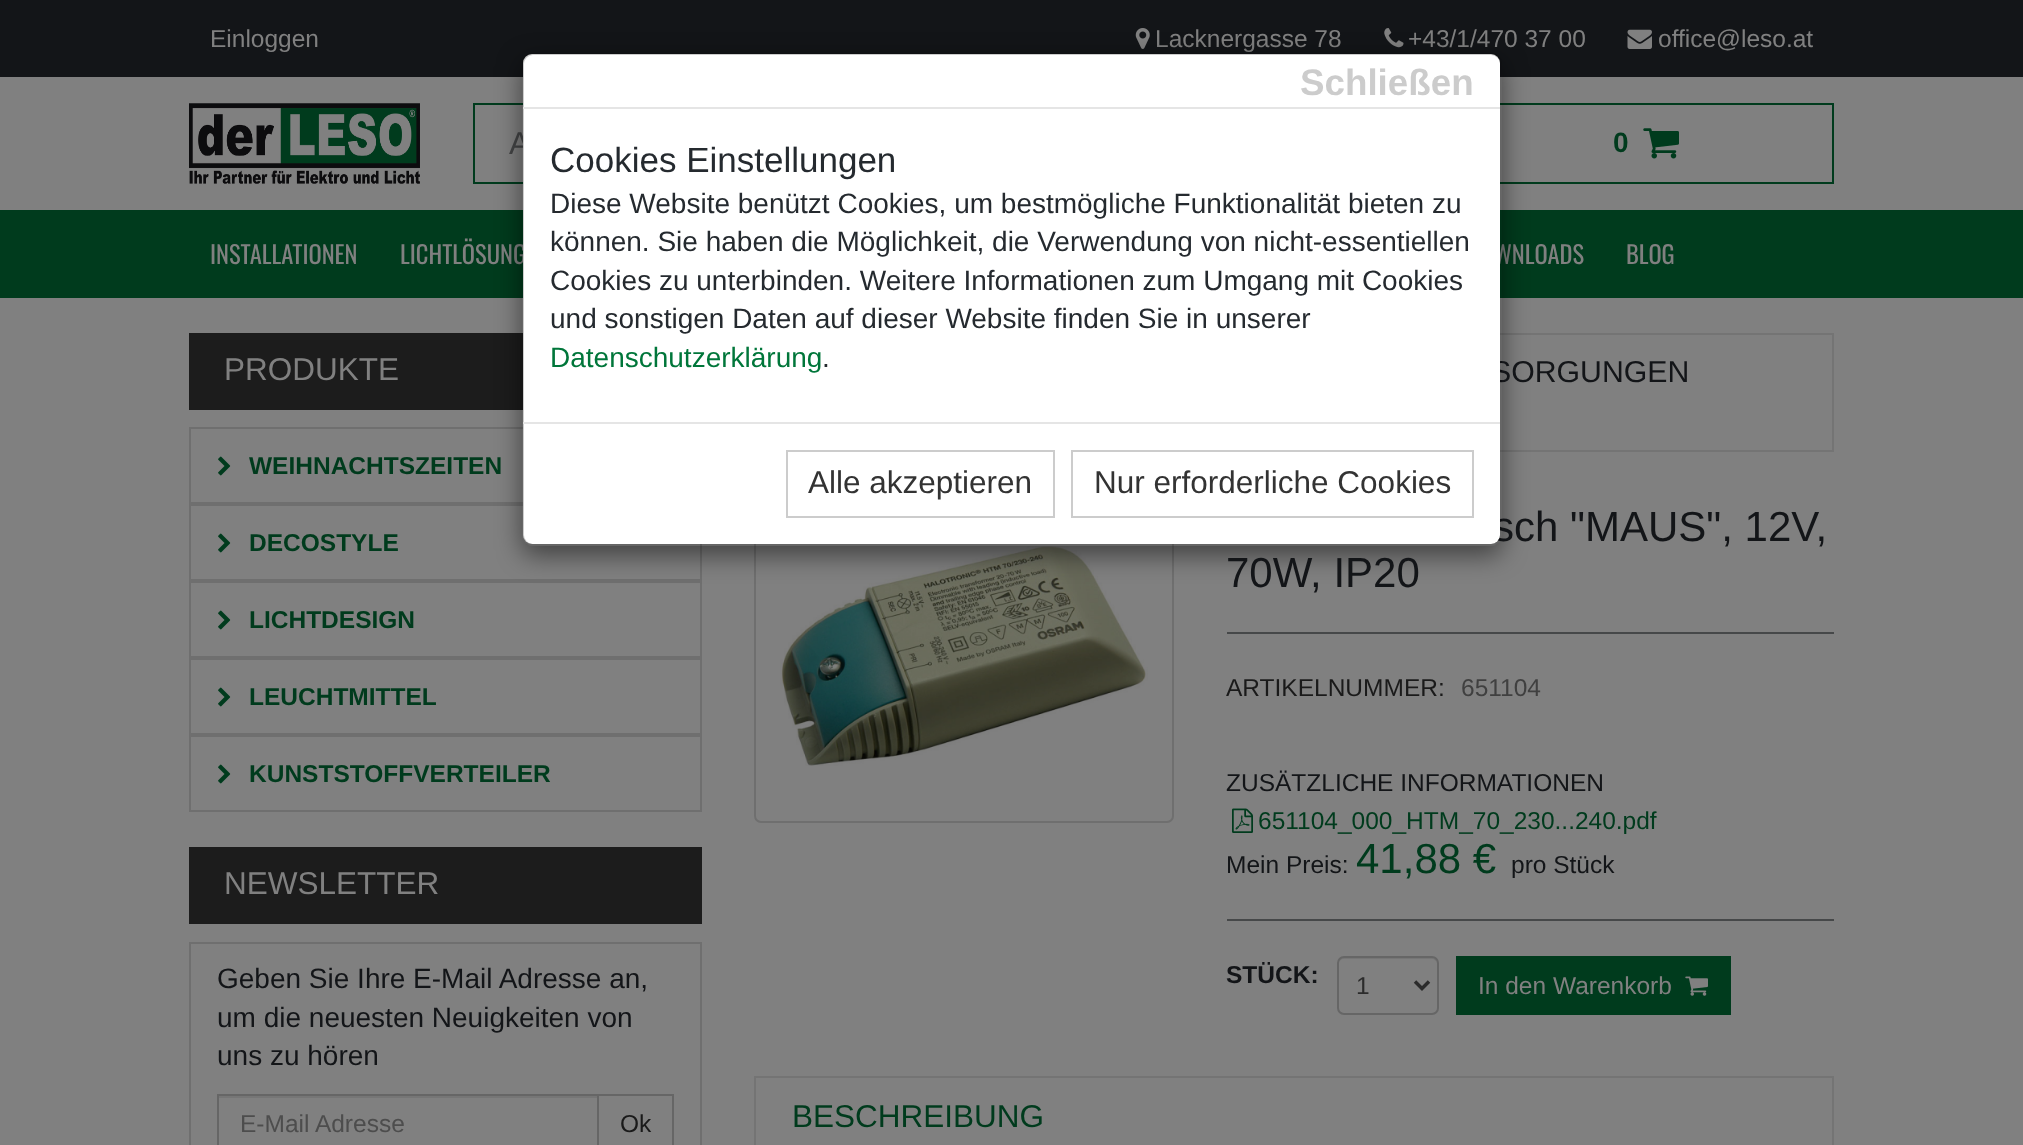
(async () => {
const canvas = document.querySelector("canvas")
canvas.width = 2023
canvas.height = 1145
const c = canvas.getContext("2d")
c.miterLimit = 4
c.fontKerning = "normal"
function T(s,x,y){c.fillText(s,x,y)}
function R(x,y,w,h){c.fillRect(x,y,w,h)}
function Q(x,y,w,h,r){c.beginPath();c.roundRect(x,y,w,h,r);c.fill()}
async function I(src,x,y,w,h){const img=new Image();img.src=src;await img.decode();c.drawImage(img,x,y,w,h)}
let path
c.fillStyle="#808080"
R(0,0,2023,1145)
c.fillStyle="#131518"
R(0,0,2023,77)
c.font="24.5px Liberation Sans"
c.fillStyle="#808080"
T("Einloggen",210,47)
await I("1.png",1135,28,15,21)
T("Lacknergasse 78",1155,47)
await I("2.png",1384,28,20,20)
T("+43/1/470 37 00",1408,47)
await I("3.png",1627,29,25,20)
T("office@leso.at",1658,47)
await I("4.png",189,103,231,81)
c.fillStyle="#003b1d"
R(473,103,50,2)
R(473,182,50,2)
R(473,103,2,81)
c.font="31.5px Liberation Sans"
c.fillStyle="#444546"
T("A",509,154)
c.strokeStyle="#003b1d"
c.lineWidth=2
c.strokeRect(1462,104,371,79)
c.font="bold 28px Liberation Sans"
c.fillStyle="#003b1d"
T("0",1613,152)
await I("5.png",1643,128,36,31)
R(0,210,2023,88)
c.font="24.5px Oswald"
c.fillStyle="#808080"
T("INSTALLATIONEN",210,264)
T("LICHTLÖSUNG",400,264)
T("WNLOADS",1494,264)
T("BLOG",1626,264)
c.fillStyle="#1c1c1c"
R(189,333,334,77)
c.strokeStyle="#6f6f6f"
c.strokeRect(190,428,511,75)
c.strokeRect(190,505,511,75)
c.strokeRect(190,582,511,75)
c.strokeStyle="#747474"
c.strokeRect(755,334,1078,117)
c.beginPath()
c.roundRect(755,505,418,317,6)
c.strokeStyle="#6f6f6f"
c.stroke()
await I("7.png",780,546,368,220)
c.save()
path = new Path2D("M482 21h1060v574h-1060zm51 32h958c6 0 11 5 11 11v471c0 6-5 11-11 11h-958c-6 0-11-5-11-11v-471c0-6 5-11 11-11z")
c.clip(path,"evenodd")
c.fillStyle="#00000080"
c.filter="blur(13px)"
c.beginPath()
c.roundRect(522,61,980,494,11)
c.fill()
c.filter="none"
c.restore()
c.font="30.25px Liberation Sans"
c.fillStyle="#131518"
T("SORGUNGEN",1491,382)
c.font="42px Liberation Sans"
T("sch \"MAUS\", 12V,",1493,541)
c.fillStyle="#fff"
Q(523,54,977,490,9)
c.beginPath()
c.roundRect(523,54,978,491,10)
c.strokeStyle="#00000033"
c.stroke()
c.fillStyle="#e5e5e5"
R(523,107,977,2)
c.font="bold 36.75px Liberation Sans"
c.fillStyle="#ccc"
T("Schließen",1300,95)
c.font="35px Liberation Sans"
c.fillStyle="#252a2f"
T("Cookies Einstellungen",550,172)
c.font="28px Liberation Sans"
T("Diese Website benützt Cookies, um bestmögliche Funktionalität bieten zu",550,213)
T("können. Sie haben die Möglichkeit, die Verwendung von nicht-essentiellen",550,251)
T("Cookies zu unterbinden. Weitere Informationen zum Umgang mit Cookies",550,290)
T("und sonstigen Daten auf dieser Website finden Sie in unserer",550,328)
c.fillStyle="#00763a"
T("Datenschutzerklärung",550,367)
c.fillStyle="#252a2f"
T(".",822,367)
c.fillStyle="#e5e5e5"
R(523,422,977,2)
c.strokeStyle="#ccc"
c.strokeRect(787,451,267,66)
c.font="31.5px Liberation Sans"
c.fillStyle="#333"
T("Alle akzeptieren",808,493)
c.strokeRect(1072,451,401,66)
T("Nur erforderliche Cookies",1094,493)
c.fillStyle="#808080"
T("PRODUKTE",224,380)
await I("6.png",218,456,13,20)
c.font="bold 24.5px Liberation Sans"
c.fillStyle="#003b1d"
T("WEIHNACHTSZEITEN",249,474)
await I("6.png",218,533,13,20)
T("DECOSTYLE",249,551)
await I("6.png",218,610,13,20)
T("LICHTDESIGN",249,628)
c.strokeStyle="#6f6f6f"
c.strokeRect(190,659,511,75)
await I("6.png",218,687,13,20)
T("LEUCHTMITTEL",249,705)
c.strokeRect(190,736,511,75)
await I("6.png",218,764,13,20)
T("KUNSTSTOFFVERTEILER",249,782)
c.fillStyle="#1c1c1c"
R(189,847,513,77)
c.font="31.5px Liberation Sans"
c.fillStyle="#808080"
T("NEWSLETTER",224,894)
c.strokeRect(190,943,511,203)
c.font="28px Liberation Sans"
c.fillStyle="#131518"
T("Geben Sie Ihre E-Mail Adresse an,",217,988)
T("um die neuesten Neuigkeiten von",217,1027)
T("uns zu hören",217,1065)
c.fillStyle="#767676"
R(219,1096,378,2)
c.strokeStyle="#666"
c.strokeRect(598,1095,75,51)
c.strokeRect(218,1095,380,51)
c.font="24.5px Liberation Sans"
c.fillStyle="#4d4d4d"
T("E-Mail Adresse",240,1132)
c.fillStyle="#1a1a1a"
T("Ok",620,1132)
c.font="42px Liberation Sans"
c.fillStyle="#131518"
T("70W, IP20",1226,587)
c.fillStyle="#464849"
R(1227,632,607,2)
c.font="24.5px Liberation Sans"
c.fillStyle="#1a1a1a"
T("ARTIKELNUMMER:",1226,696)
c.fillStyle="#404040"
T("651104",1461,696)
c.fillStyle="#131518"
T("ZUSÄTZLICHE INFORMATIONEN",1226,791)
await I("8.png",1232,808,21,25)
c.fillStyle="#003b1d"
T("651104_000_HTM_70_230...240.pdf",1258,829)
c.fillStyle="#131518"
T("Mein Preis:",1226,873)
c.font="42px Liberation Sans"
c.fillStyle="#003b1d"
T("41,88 €",1356,873)
c.font="24.5px Liberation Sans"
c.fillStyle="#131518"
T("pro Stück",1511,873)
c.fillStyle="#464849"
R(1227,919,607,2)
c.font="bold 24.5px Liberation Sans"
c.fillStyle="#131518"
T("STÜCK:",1226,983)
c.fillStyle="#767676"
path = new Path2D("M1344 959h88c2 0 5 2 5 5c0-11-11-7-20-7h-58c-9 0-20-4-20 7c0-3 2-5 5-5z")
c.fill(path)
c.beginPath()
c.roundRect(1338,957,100,57,6)
c.stroke()
path = new Path2D("M1415 981.5l7 7l7-7")
c.strokeStyle="#2b2b2b"
c.lineWidth=3.5
c.stroke(path)
c.font="24.5px Liberation Sans"
c.fillStyle="#2b2b2b"
T("1",1356,994)
c.fillStyle="#003b1d"
R(1456,956,275,59)
c.fillStyle="#808080"
T("In den Warenkorb",1478,994)
await I("9.png",1685,976,23,20)
c.fillStyle="#747474"
R(754,1076,1080,2)
path = new Path2D("M1834 1076v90l-2-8v-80z")
c.fill(path)
path = new Path2D("M754 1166v-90l2 2v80z")
c.fill(path)
c.font="31.5px Liberation Sans"
c.fillStyle="#003b1d"
T("BESCHREIBUNG",792,1127)
})()
